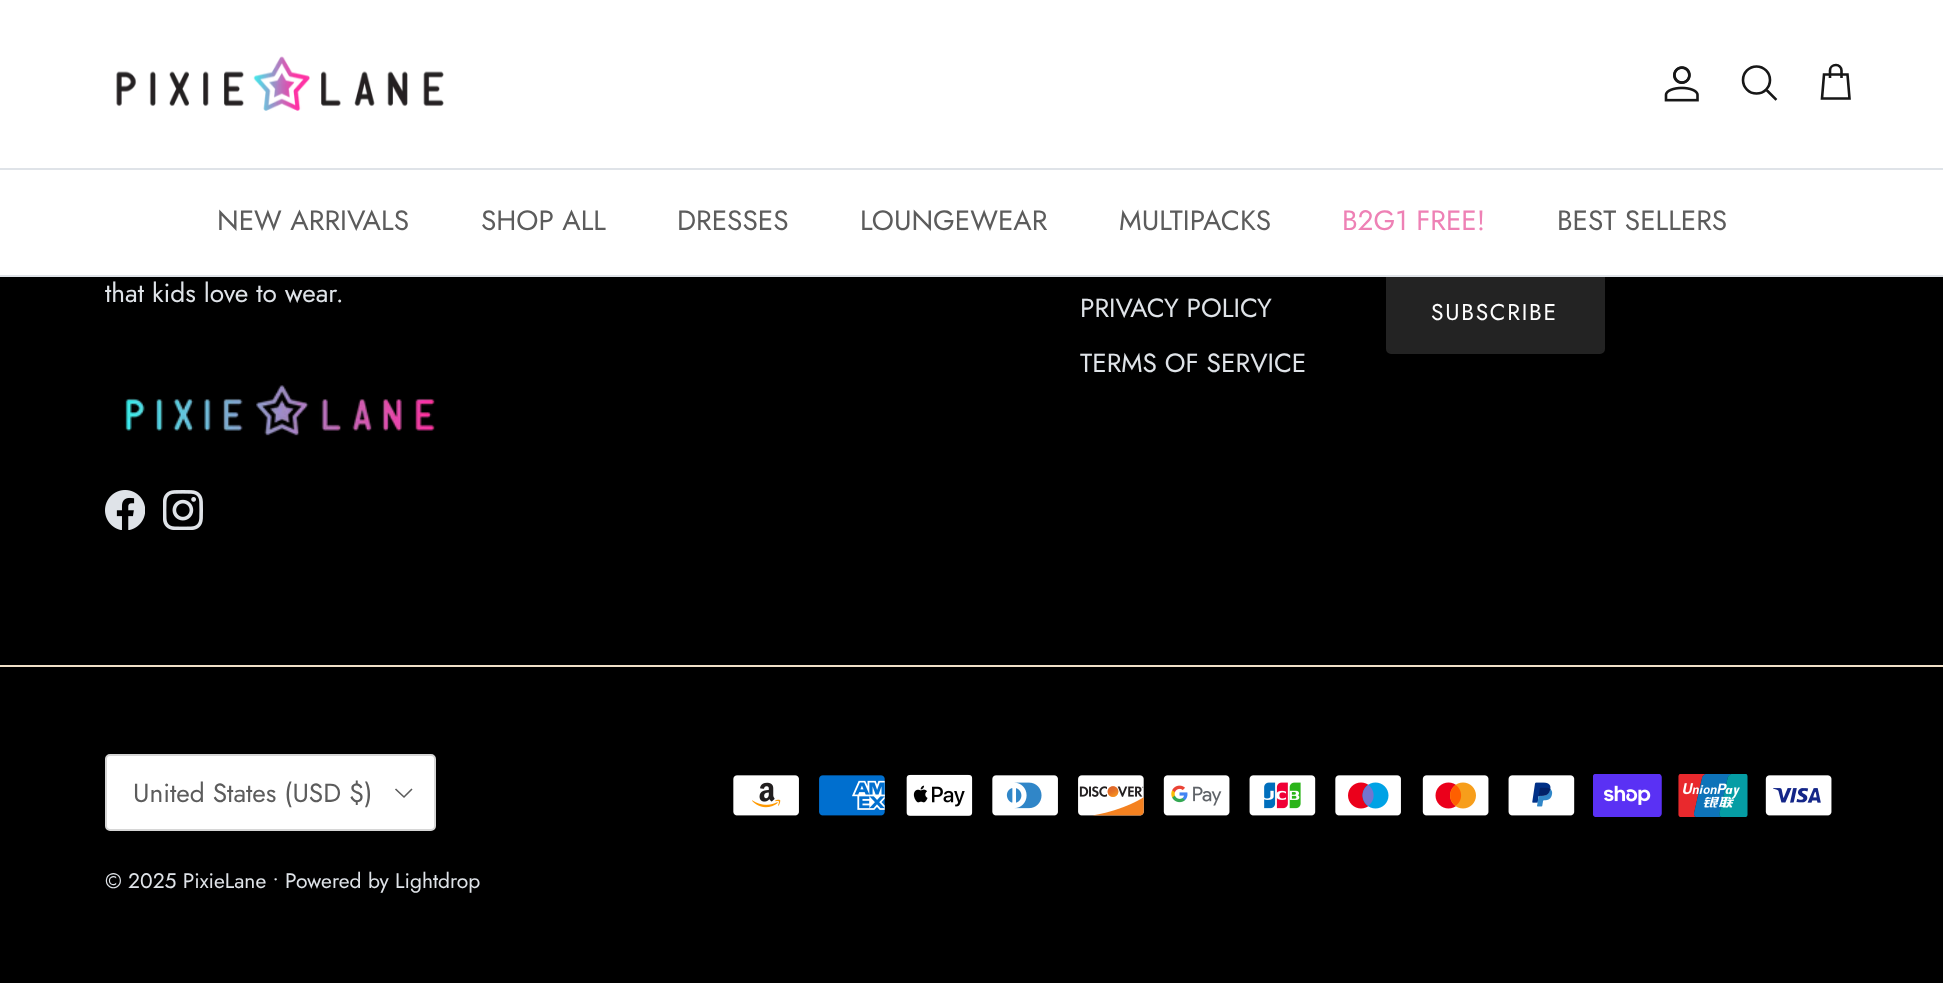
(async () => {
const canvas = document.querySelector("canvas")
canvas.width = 1943
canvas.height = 983
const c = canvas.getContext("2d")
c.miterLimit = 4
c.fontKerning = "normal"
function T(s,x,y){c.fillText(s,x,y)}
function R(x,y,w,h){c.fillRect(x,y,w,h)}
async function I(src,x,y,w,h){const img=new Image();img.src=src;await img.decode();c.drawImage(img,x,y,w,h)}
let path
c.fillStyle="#000"
R(0,0,1943,983)
c.fillStyle="#fff"
R(0,0,1943,168)
c.fillStyle="#dfe3e8"
R(0,168,1943,2)
await I("1.png",116,56,328,55)
await I("2.png",1664,66,35,36)
c.beginPath()
c.arc(1756.5,80,13.5,0,7)
c.strokeStyle="#171717"
c.lineWidth=2.6
c.stroke()
path = new Path2D("M1767.5 91l8 8")
c.lineCap="square"
c.stroke(path)
path = new Path2D("M1841.5 78v-7.5c0-3-2.5-5.5-5.5-5.5c-3.5 0-6 2.5-6 5.5v7.5m-6-3.5h23.5l2 24h-27.5z")
c.lineCap="butt"
c.stroke(path)
c.fillStyle="#232323"
c.beginPath()
c.roundRect(1387,272,217,81,4)
c.fill()
c.strokeStyle="#232323"
c.lineWidth=2
c.stroke()
c.fillStyle="#dfe3e8"
R(0,275,1943,2)
c.fillStyle="#fff"
R(0,170,1943,105)
c.font="28px Jost"
c.fillStyle="#5c5c5c"
T("NEW ARRIVALS",217,230)
T("SHOP ALL",481,230)
T("DRESSES",677,230)
T("LOUNGEWEAR",860,230)
T("MULTIPACKS",1119,230)
c.fillStyle="#ee81b5"
T("B2G1 FREE!",1342,230)
c.fillStyle="#5c5c5c"
T("BEST SELLERS",1557,230)
c.font="26.25px Jost"
c.fillStyle="#dfe3e8"
T("that kids love to wear.",105,302)
await I("3.png",125,385,310,51)
await I("4.png",105,490,40,40)
await I("5.png",163,490,40,40)
T("PRIVACY POLICY",1080,317)
T("TERMS OF SERVICE",1080,372)
c.letterSpacing="1.75px"
c.font="22.75px Jost"
c.fillStyle="#fff"
T("SUBSCRIBE",1431,320)
c.fillStyle="#efdfc7"
R(0,665,1943,2)
c.fillStyle="#fff"
c.beginPath()
c.roundRect(106,755,329,75,4)
c.fill()
c.strokeStyle="#d6d6d6"
c.stroke()
c.letterSpacing="0px"
c.font="26.25px Jost"
c.fillStyle="#5c5c5c"
T("United States (USD $)",133,802)
path = new Path2D("M412 789l-8 8l-8.5-8")
c.strokeStyle="#5c5c5c"
c.lineWidth=1.6
c.stroke(path)
c.font="21px Jost"
c.fillStyle="#dfe3e8"
T("© 2025 PixieLane • Powered by Lightdrop",105,888)
await I("6.png",733,775,66,41)
await I("7.png",819,775,66,41)
await I("8.png",906,774,67,42)
await I("9.png",992,775,66,41)
await I("10.png",1078,775,66,41)
await I("11.png",1163,775,67,41)
await I("12.png",1249,775,67,41)
await I("13.png",1335,775,66,41)
await I("14.png",1422,775,67,41)
await I("15.png",1508,775,67,41)
await I("16.png",1593,774,69,43)
await I("17.png",1678,774,70,43)
await I("18.png",1765,775,67,41)
})()
